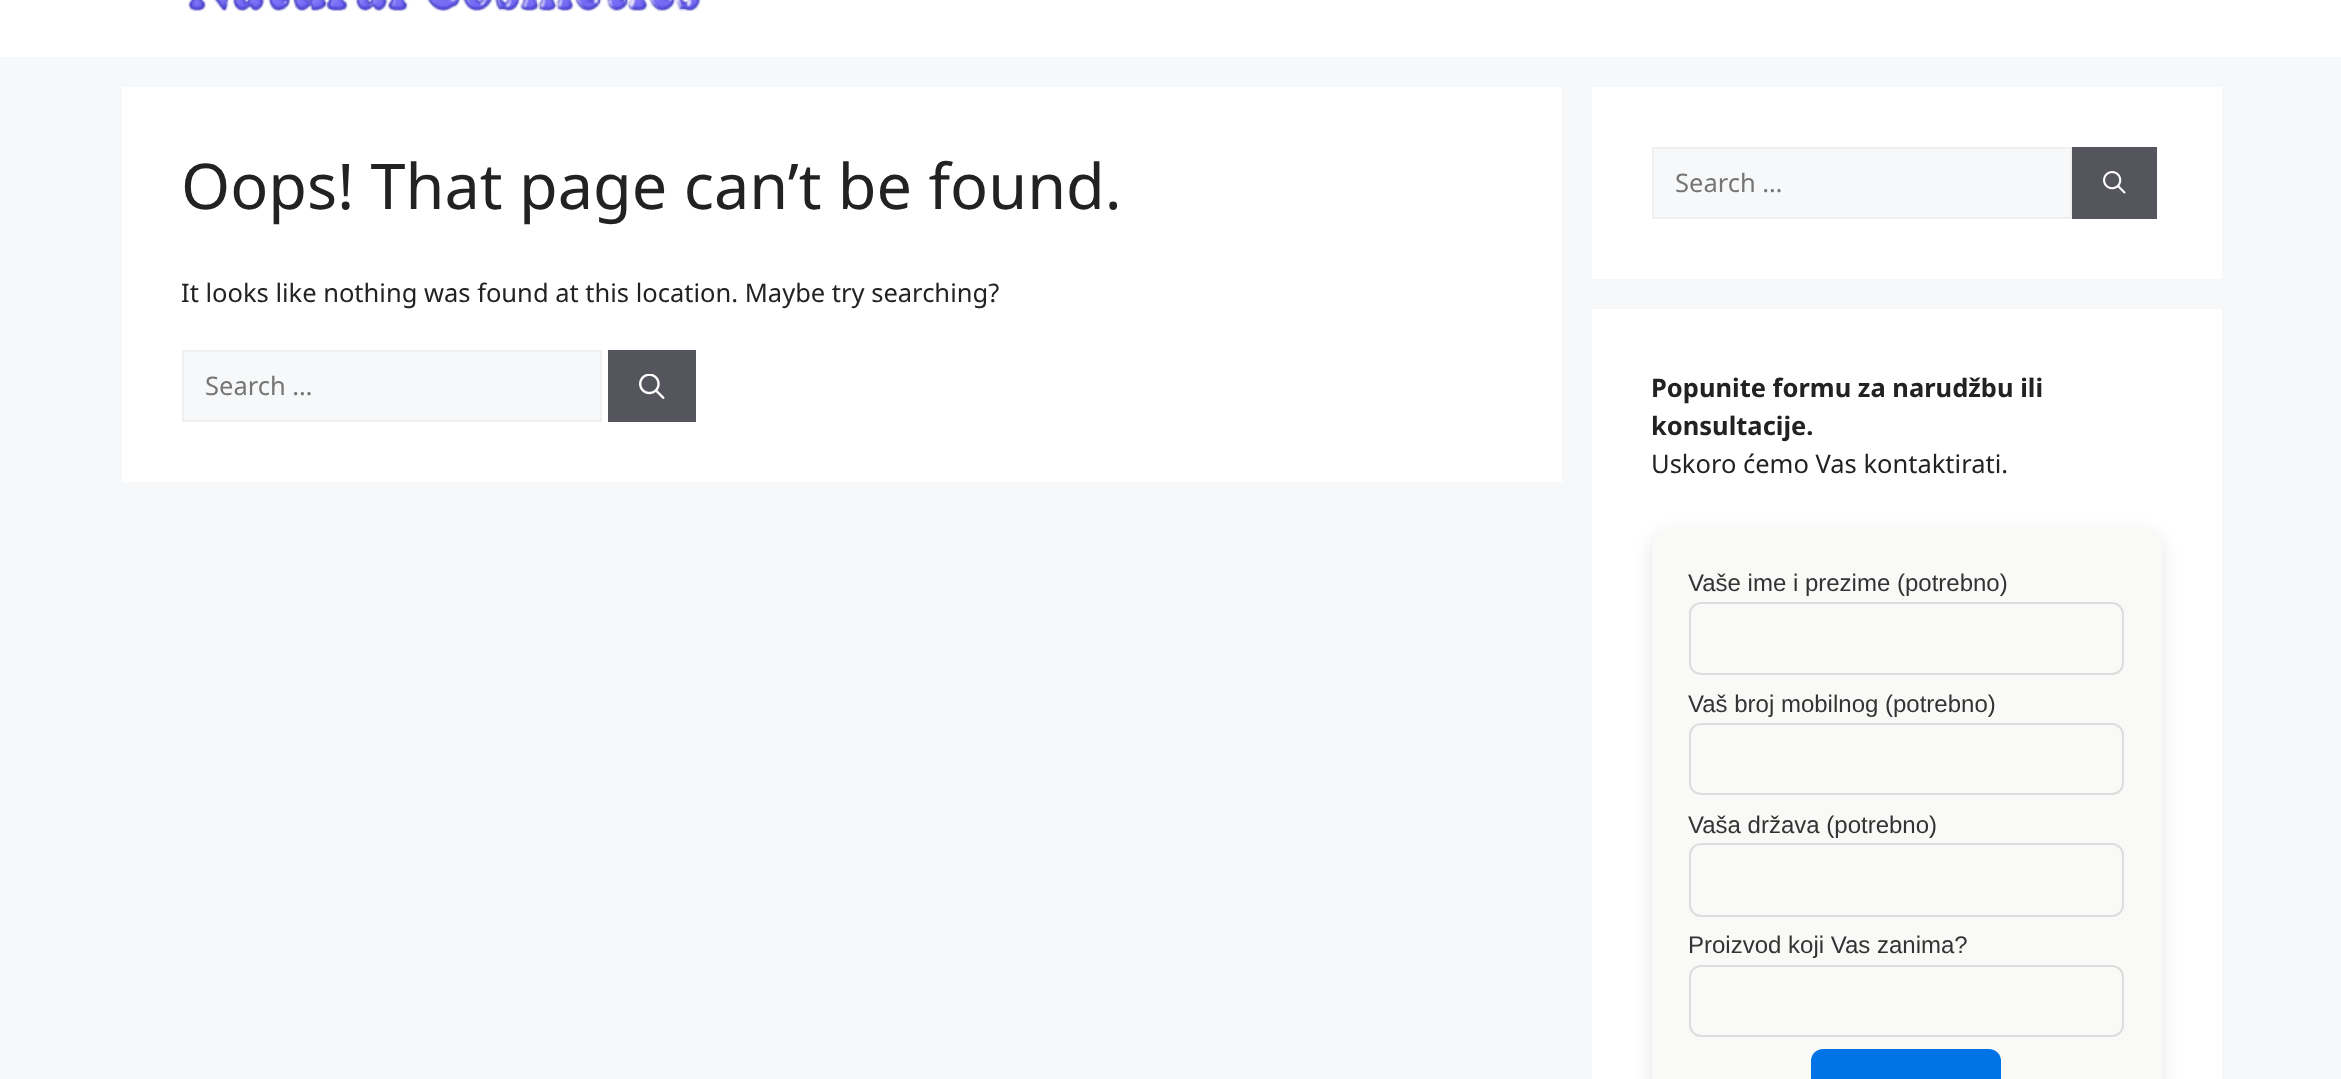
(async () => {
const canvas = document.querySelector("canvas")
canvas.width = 2341
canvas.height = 1079
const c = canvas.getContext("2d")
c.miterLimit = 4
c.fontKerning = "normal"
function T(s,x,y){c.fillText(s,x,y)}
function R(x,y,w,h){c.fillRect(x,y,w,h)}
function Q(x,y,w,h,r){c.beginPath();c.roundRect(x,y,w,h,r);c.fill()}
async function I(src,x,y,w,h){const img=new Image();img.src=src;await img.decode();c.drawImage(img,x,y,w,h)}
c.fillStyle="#f7f8f9"
R(0,0,2341,1079)
c.fillStyle="#fff"
R(0,0,2341,57)
await I("1.png",188,0,513,12)
R(122,87,1440,395)
c.font="63px Noto Sans"
c.fillStyle="#222"
T("Oops! That page can’t be found.",181,209)
c.font="25.5px Noto Sans"
T("It looks like nothing was found at this location. Maybe try searching?",181,302)
c.fillStyle="#f7f8f9"
c.beginPath()
c.rect(183,351,418,70)
c.fill()
c.strokeStyle="#f0f0f0"
c.lineWidth=2
c.stroke()
c.fillStyle="#757575"
T("Search …",205,395)
c.fillStyle="#55555e"
R(608,350,88,72)
await I("2.png",639,374,26,25)
c.fillStyle="#fff"
R(1592,87,630,192)
c.fillStyle="#f7f8f9"
c.beginPath()
c.rect(1653,148,418,70)
c.fill()
c.stroke()
c.fillStyle="#757575"
T("Search …",1675,192)
c.fillStyle="#55555e"
R(2072,147,85,72)
await I("3.png",2103,171,23,23)
c.fillStyle="#fff"
R(1592,309,630,770)
c.font="bold 25.5px Noto Sans"
c.fillStyle="#222"
T("Popunite formu za narudžbu ili",1651,397)
T("konsultacije.",1651,435)
c.font="25.5px Noto Sans"
T("Uskoro ćemo Vas kontaktirati.",1651,473)
c.fillStyle="#0000001a"
c.filter="blur(9px)"
c.beginPath()
c.roundRect(1652,534,510,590,18)
c.fill()
c.filter="none"
c.fillStyle="#f9f9f7"
Q(1652,528,510,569,18)
c.font="24px Liberation Sans"
c.fillStyle="#333"
T("Vaše ime i prezime (potrebno)",1688,591)
c.beginPath()
c.roundRect(1690,603,433,71,11)
c.strokeStyle="#ddd"
c.stroke()
T("Vaš broj mobilnog (potrebno)",1688,712)
c.beginPath()
c.roundRect(1690,724,433,70,11)
c.stroke()
T("Vaša država (potrebno)",1688,833)
c.beginPath()
c.roundRect(1690,844,433,72,11)
c.stroke()
T("Proizvod koji Vas zanima?",1688,953)
c.beginPath()
c.roundRect(1690,966,433,70,11)
c.stroke()
c.fillStyle="#0073e6"
Q(1811,1049,190,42,12)
})()
